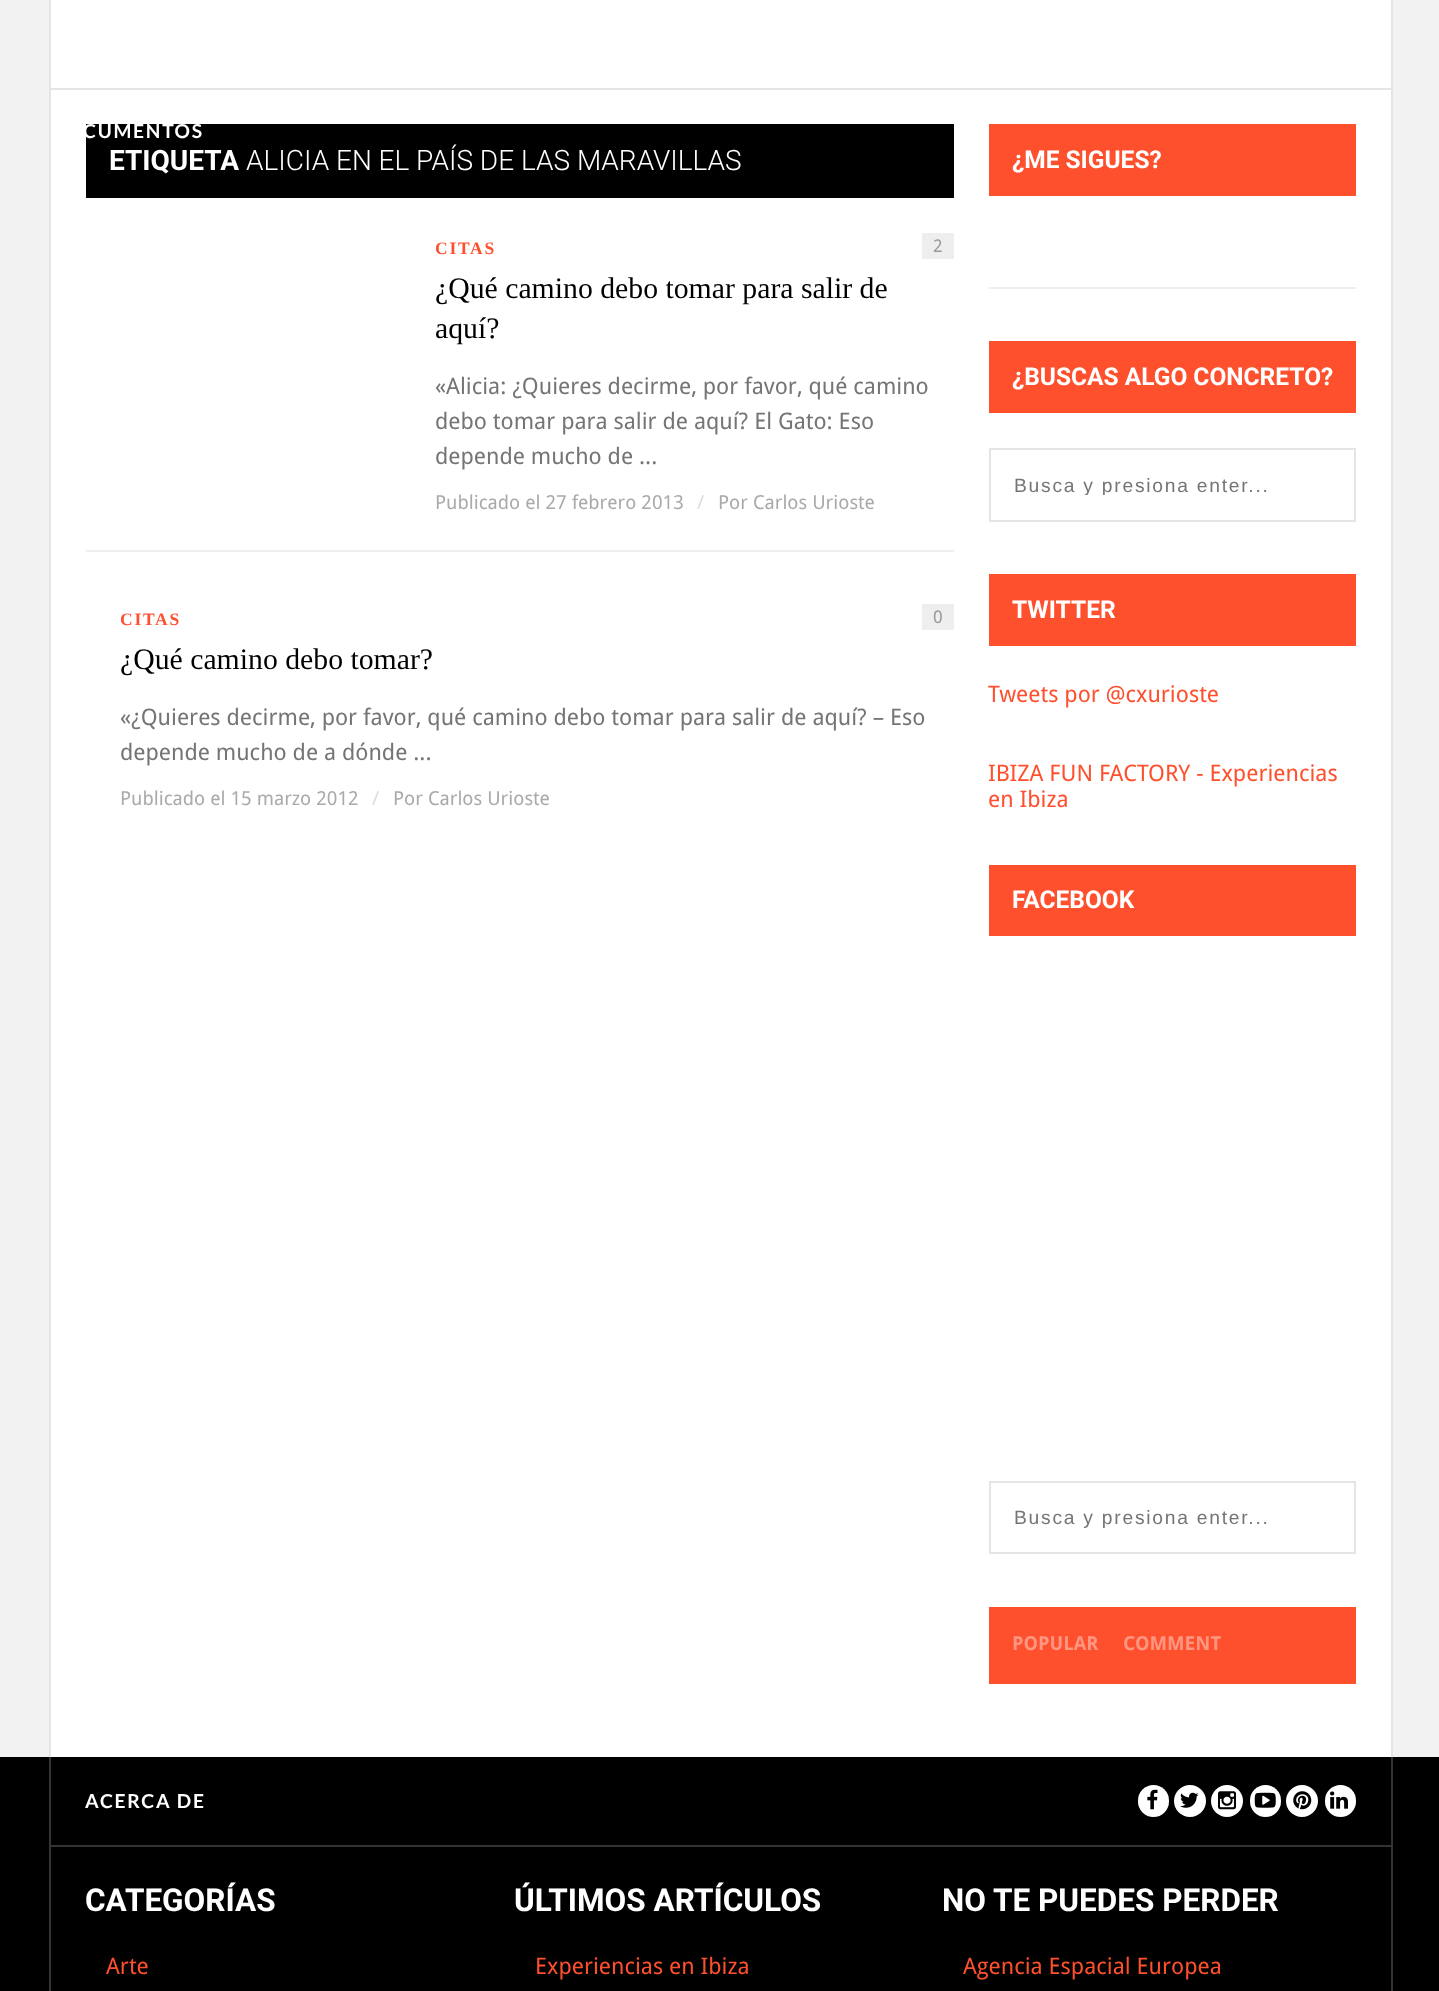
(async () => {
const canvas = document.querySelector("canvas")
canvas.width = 1439
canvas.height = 1991
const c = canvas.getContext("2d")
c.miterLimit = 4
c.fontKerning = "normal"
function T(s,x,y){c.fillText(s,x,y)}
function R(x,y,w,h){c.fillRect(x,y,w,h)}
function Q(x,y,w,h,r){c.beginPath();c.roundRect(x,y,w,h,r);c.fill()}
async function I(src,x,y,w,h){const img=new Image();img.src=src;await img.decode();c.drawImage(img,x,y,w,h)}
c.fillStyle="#f2f2f2"
R(0,0,1439,1991)
c.fillStyle="#fff"
R(51,0,1340,1757)
c.fillStyle="#000"
R(86,124,868,74)
c.letterSpacing="1.75px"
c.font="bold 19.25px Lato"
c.fillStyle="#fff"
T("CUMENTOS",83,138)
c.fillStyle="#e5e5e5"
R(1391,0,2,1757)
R(49,0,2,1757)
R(51,88,1340,2)
c.letterSpacing="0px"
c.font="bold 28px Roboto"
c.fillStyle="#fff"
T("ETIQUETA",109,170)
c.font="300 28px Roboto"
T("ALICIA EN EL PAÍS DE LAS MARAVILLAS",246,170)
c.fillStyle="#eee"
R(86,550,868,2)
c.save()
c.beginPath()
c.rect(436,233,518,282)
c.clip()
c.letterSpacing="1.75px"
c.font="bold 17.5px Liberation Serif"
c.fillStyle="#ff502e"
T("CITAS",435,254)
c.restore()
R(922,233,32,26)
c.font="17.5px Droid Sans"
c.fillStyle="#999"
T("2",933,252)
c.font="29.75px Liberation Serif"
c.fillStyle="#000"
T("¿Qué camino debo tomar para salir de",435,298)
T("aquí?",435,338)
c.font="22.75px Droid Sans"
c.fillStyle="#757575"
T("«Alicia: ¿Quieres decirme, por favor, qué camino",435,394)
T("debo tomar para salir de aquí? El Gato: Eso",435,429)
T("depende mucho de ...",435,464)
c.font="19.25px Droid Sans"
c.fillStyle="#aaa"
T("Publicado el 27 febrero 2013",435,509)
c.fillStyle="#ddd"
T("/",697,509)
c.fillStyle="#aaa"
T("Por Carlos Urioste",718,509)
c.save()
c.beginPath()
c.rect(121,604,833,206)
c.clip()
c.letterSpacing="1.75px"
c.font="bold 17.5px Liberation Serif"
c.fillStyle="#ff502e"
T("CITAS",120,625)
c.restore()
c.fillStyle="#eee"
R(922,604,32,26)
c.font="17.5px Droid Sans"
c.fillStyle="#999"
T("0",933,623)
c.font="29.75px Liberation Serif"
c.fillStyle="#000"
T("¿Qué camino debo tomar?",120,669)
c.font="22.75px Droid Sans"
c.fillStyle="#757575"
T("«¿Quieres decirme, por favor, qué camino debo tomar para salir de aquí? – Eso",120,725)
T("depende mucho de a dónde ...",120,760)
c.font="19.25px Droid Sans"
c.fillStyle="#aaa"
T("Publicado el 15 marzo 2012",120,805)
c.fillStyle="#ddd"
T("/",372,805)
c.fillStyle="#aaa"
T("Por Carlos Urioste",393,805)
c.fillStyle="#ff502e"
R(989,124,367,72)
c.font="bold 24.5px Roboto"
c.fillStyle="#fff"
T("¿ME SIGUES?",1012,168)
c.fillStyle="#eee"
R(989,287,367,2)
c.fillStyle="#ff502e"
R(989,341,367,72)
c.fillStyle="#fff"
T("¿BUSCAS ALGO CONCRETO?",1012,385)
c.strokeStyle="#e5e5e5"
c.lineWidth=2
c.strokeRect(990,449,365,72)
c.save()
c.beginPath()
c.rect(1015,474,315,21)
c.clip()
c.letterSpacing="1.75px"
c.font="19.25px Liberation Sans"
c.fillStyle="#757575"
T("Busca y presiona enter...",1014,492)
c.restore()
c.fillStyle="#ff502e"
R(989,574,367,72)
c.fillStyle="#fff"
T("TWITTER",1012,618)
c.font="22.75px Droid Sans"
c.fillStyle="#ff502e"
T("Tweets por @cxurioste",988,702)
T("IBIZA FUN FACTORY - Experiencias",988,781)
T("en Ibiza",988,807)
R(989,865,367,71)
c.font="bold 24.5px Roboto"
c.fillStyle="#fff"
T("FACEBOOK",1012,908)
c.strokeRect(990,1482,365,71)
c.letterSpacing="1.75px"
c.font="19.25px Liberation Sans"
c.fillStyle="#757575"
T("Busca y presiona enter...",1014,1524)
c.fillStyle="#ff502e"
R(989,1607,367,77)
c.letterSpacing="0px"
c.font="bold 19.25px Droid Sans"
c.fillStyle="#ff9682"
T("POPULAR",1012,1650)
T("COMMENT",1123,1650)
c.fillStyle="#000"
R(0,1757,1439,234)
c.fillStyle="#333"
R(1391,1757,2,234)
R(49,1757,2,234)
R(51,1845,1340,2)
c.letterSpacing="1.75px"
c.font="bold 19.25px Lato"
c.fillStyle="#fff"
T("ACERCA DE",85,1808)
Q(1138,1785,31,32,15.5)
await I("1.png",1147,1789,11,21)
c.beginPath()
c.arc(1190,1801,16,0,7)
c.fill()
await I("2.png",1180,1792,19,16)
c.beginPath()
c.arc(1227,1801,16,0,7)
c.fill()
await I("3.png",1218,1791,18,19)
Q(1250,1785,31,32,15.5)
await I("4.png",1254,1792,22,16)
c.beginPath()
c.arc(1302,1801,16,0,7)
c.fill()
await I("5.png",1293,1791,19,19)
Q(1325,1785,31,32,15.5)
await I("6.png",1330,1791,18,18)
c.letterSpacing="0px"
c.font="bold 31.5px Roboto"
T("CATEGORÍAS",85,1911)
c.font="22.75px Droid Sans"
c.fillStyle="#ff502e"
T("Arte",106,1974)
c.font="bold 31.5px Roboto"
c.fillStyle="#fff"
T("ÚLTIMOS ARTÍCULOS",514,1911)
c.font="22.75px Droid Sans"
c.fillStyle="#ff502e"
T("Experiencias en Ibiza",535,1974)
c.font="bold 31.5px Roboto"
c.fillStyle="#fff"
T("NO TE PUEDES PERDER",942,1911)
c.font="22.75px Droid Sans"
c.fillStyle="#ff502e"
T("Agencia Espacial Europea",963,1974)
})()
